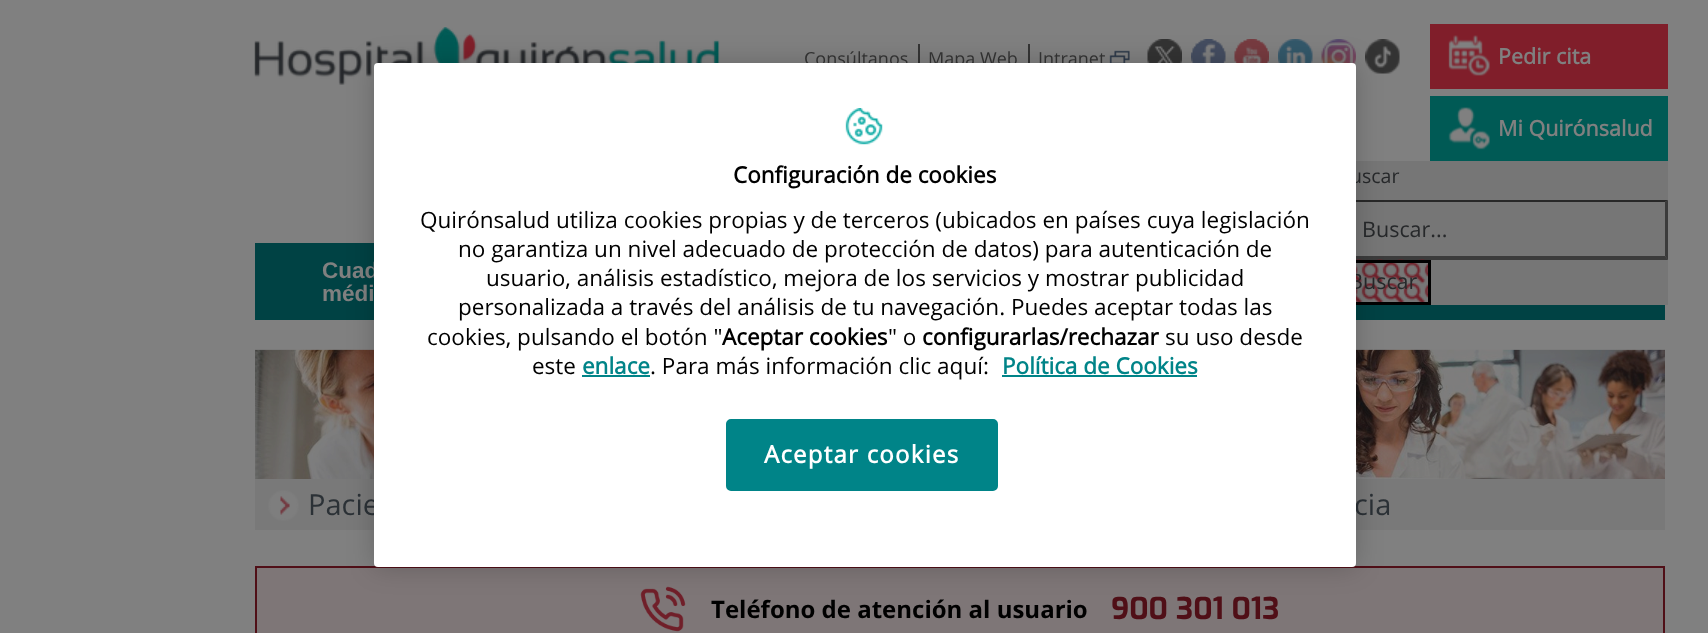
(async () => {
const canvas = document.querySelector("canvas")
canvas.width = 1708
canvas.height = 633
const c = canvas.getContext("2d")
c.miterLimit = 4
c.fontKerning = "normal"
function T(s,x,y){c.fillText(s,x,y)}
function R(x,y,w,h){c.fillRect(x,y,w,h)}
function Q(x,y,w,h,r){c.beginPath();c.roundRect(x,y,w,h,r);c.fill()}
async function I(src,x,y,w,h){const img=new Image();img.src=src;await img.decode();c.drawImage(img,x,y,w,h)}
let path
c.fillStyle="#808080"
R(0,0,1708,633)
c.fillStyle="#004244"
R(255,243,1410,77)
c.font="bold 22.5px Liberation Sans"
c.fillStyle="#808080"
T("Cuad",322,278)
T("médi",322,301)
await I("1.png",254,27,466,58)
c.font="18px Open Sans"
c.fillStyle="#343434"
T("Consúltanos",804,65)
R(918,44,2,19)
T("Mapa Web",928,65)
R(1028,44,2,19)
T("Intranet",1038,65)
await I("2.png",1109,50,21,13)
await I("3.png",1147,39,35,24)
await I("4.png",1191,39,35,24)
await I("5.png",1234,39,35,24)
await I("6.png",1278,39,35,24)
await I("7.png",1321,39,35,26)
await I("8.png",1365,39,35,35)
c.fillStyle="#801e2a"
R(1430,24,238,65)
await I("9.png",1448,35,42,41)
c.font="bold 21.5px 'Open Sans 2'"
c.fillStyle="#808080"
T("Pedir cita",1498,64)
c.fillStyle="#005a55"
R(1430,96,238,65)
await I("10.png",1448,107,42,43)
c.fillStyle="#808080"
T("Mi Quirónsalud",1498,136)
c.fillStyle="#767676"
R(1356,161,312,144)
c.font="19.5px Open Sans"
c.fillStyle="#26282a"
T("uscar",1350,183)
c.fillStyle="#282828"
path = new Path2D("M1338 200h330l-3 2h-324z")
c.fill(path)
c.fillStyle="#3b3b3b"
path = new Path2D("M1668 200v60l-3-4v-54z")
c.fill(path)
path = new Path2D("M1668 260h-330l3-4h324z")
c.fill(path)
c.font="21.5px Open Sans"
c.fillStyle="#26282a"
T("Buscar...",1362,237)
await I("11.png",1356,259,72,43)
c.strokeStyle="#000"
c.lineWidth=3
c.strokeRect(1339.5,261.5,90,42)
T("Buscar",1349,289)
await I("12.png",255,349,119,130)
c.fillStyle="#797979"
R(255,479,119,51)
await I("13.png",268,490,31,31)
c.font="29px Open Sans"
c.fillStyle="#2b3136"
T("Pacie",308,515)
await I("14.png",1356,349,309,130)
c.fillStyle="#797979"
R(1356,479,309,51)
c.fillStyle="#2b3136"
T("cia",1354,515)
c.fillStyle="#7e7677"
c.beginPath()
c.rect(256,567,1408,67)
c.fill()
c.strokeStyle="#500f17"
c.lineWidth=2
c.stroke()
await I("15.png",640,586,46,46)
c.font="bold 24px Open Sans"
c.fillStyle="#000"
T("Teléfono de atención al usuario",711,618)
c.font="bold 30px Exo"
c.fillStyle="#500f17"
T("900 301 013",1111,619)
c.fillStyle="#00000033"
c.filter="blur(13.5px)"
c.beginPath()
c.roundRect(374,63,982,504,4)
c.fill()
c.filter="none"
c.fillStyle="#fff"
Q(374,63,982,504,4)
await I("16.png",845,108,38,37)
c.font="bold 22.5px 'Open Sans 2'"
c.fillStyle="#000"
T("Configuración de cookies",733,183)
c.font="22.5px Open Sans"
T("Quirónsalud utiliza cookies propias y de terceros (ubicados en países cuya legislación",420,228)
T("no garantiza un nivel adecuado de protección de datos) para autenticación de",458,257)
T("usuario, análisis estadístico, mejora de los servicios y mostrar publicidad",486,286)
T("personalizada a través del análisis de tu navegación. Puedes aceptar todas las",458,315)
T("cookies, pulsando el botón \"",427,345)
c.font="bold 22.5px 'Open Sans 2'"
T("Aceptar cookies",722,345)
c.font="22.5px Open Sans"
T("\" o",888,345)
c.font="bold 22.5px 'Open Sans 2'"
T("configurarlas/rechazar",922,345)
c.font="22.5px Open Sans"
T("su uso desde",1165,345)
T("este",532,374)
c.font="bold 22.5px 'Open Sans 2'"
c.fillStyle="#008488"
T("enlace",582,374)
R(582,375,68,2)
c.font="22.5px Open Sans"
c.fillStyle="#000"
T(". Para más información clic aquí:",650,374)
c.font="bold 22.5px 'Open Sans 2'"
c.fillStyle="#008488"
T("Política de Cookies",1002,374)
R(1002,375,195,2)
c.beginPath()
c.roundRect(727,420,270,70,4)
c.fill()
c.strokeStyle="#008488"
c.stroke()
c.letterSpacing="1.25px"
c.font="bold 24px 'Open Sans 2'"
c.fillStyle="#fff"
T("Aceptar cookies",764,463)
})()
